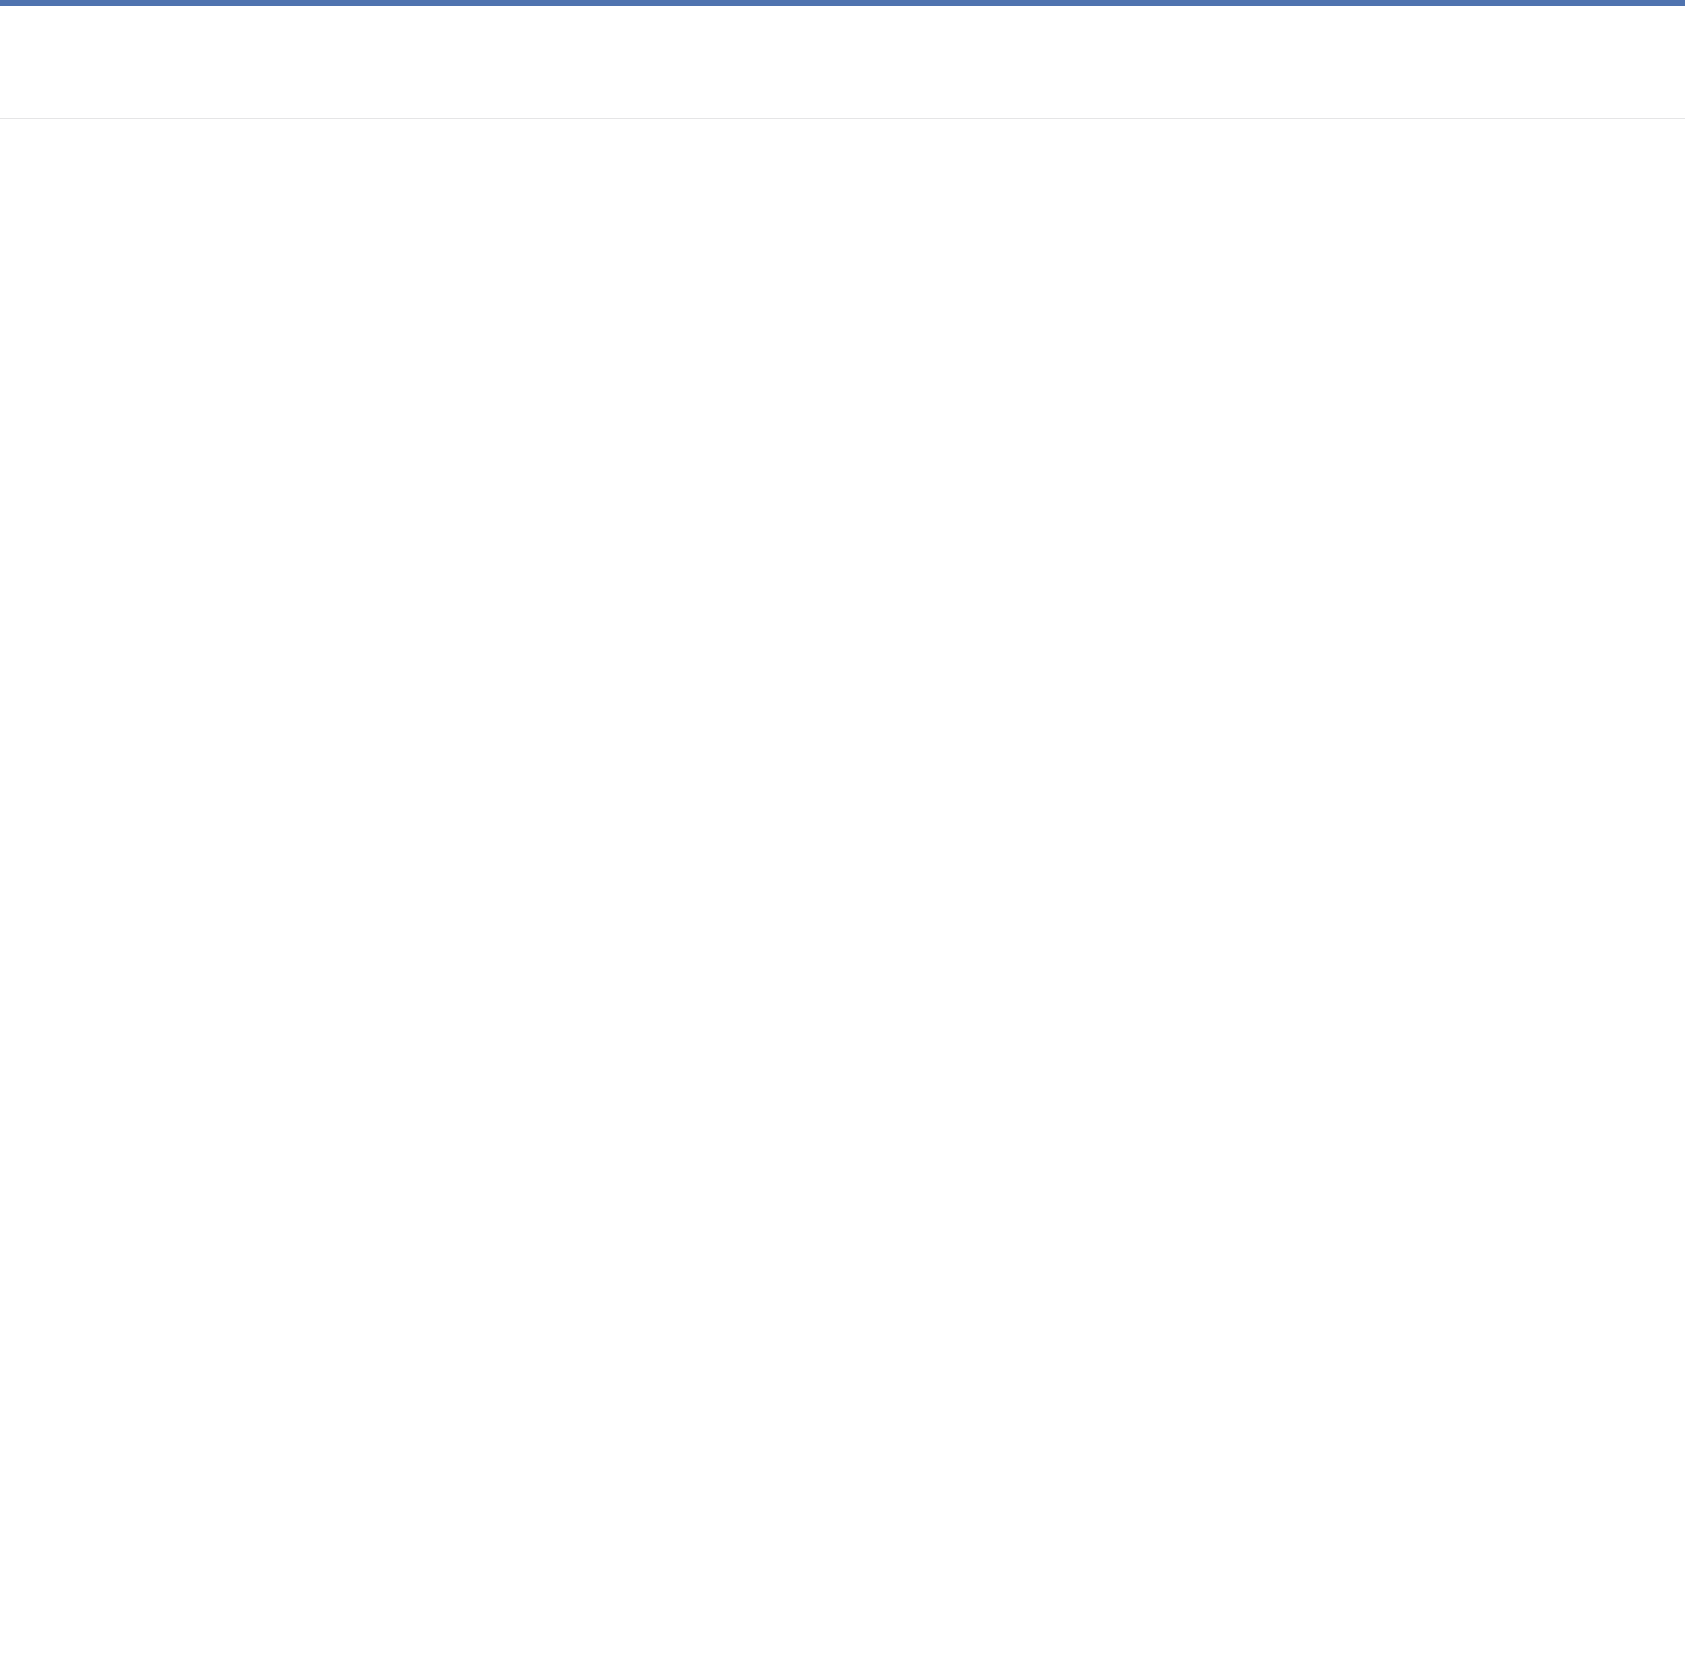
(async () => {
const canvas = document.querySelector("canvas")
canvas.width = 1685
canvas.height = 1663
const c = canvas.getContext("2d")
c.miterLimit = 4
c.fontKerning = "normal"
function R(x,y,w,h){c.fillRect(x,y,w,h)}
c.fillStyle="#fff"
R(0,0,1685,1663)
c.fillStyle="#4f73af"
R(0,0,1685,6)
c.fillStyle="#e5e5e6"
R(0,118,1685,1)
})()
